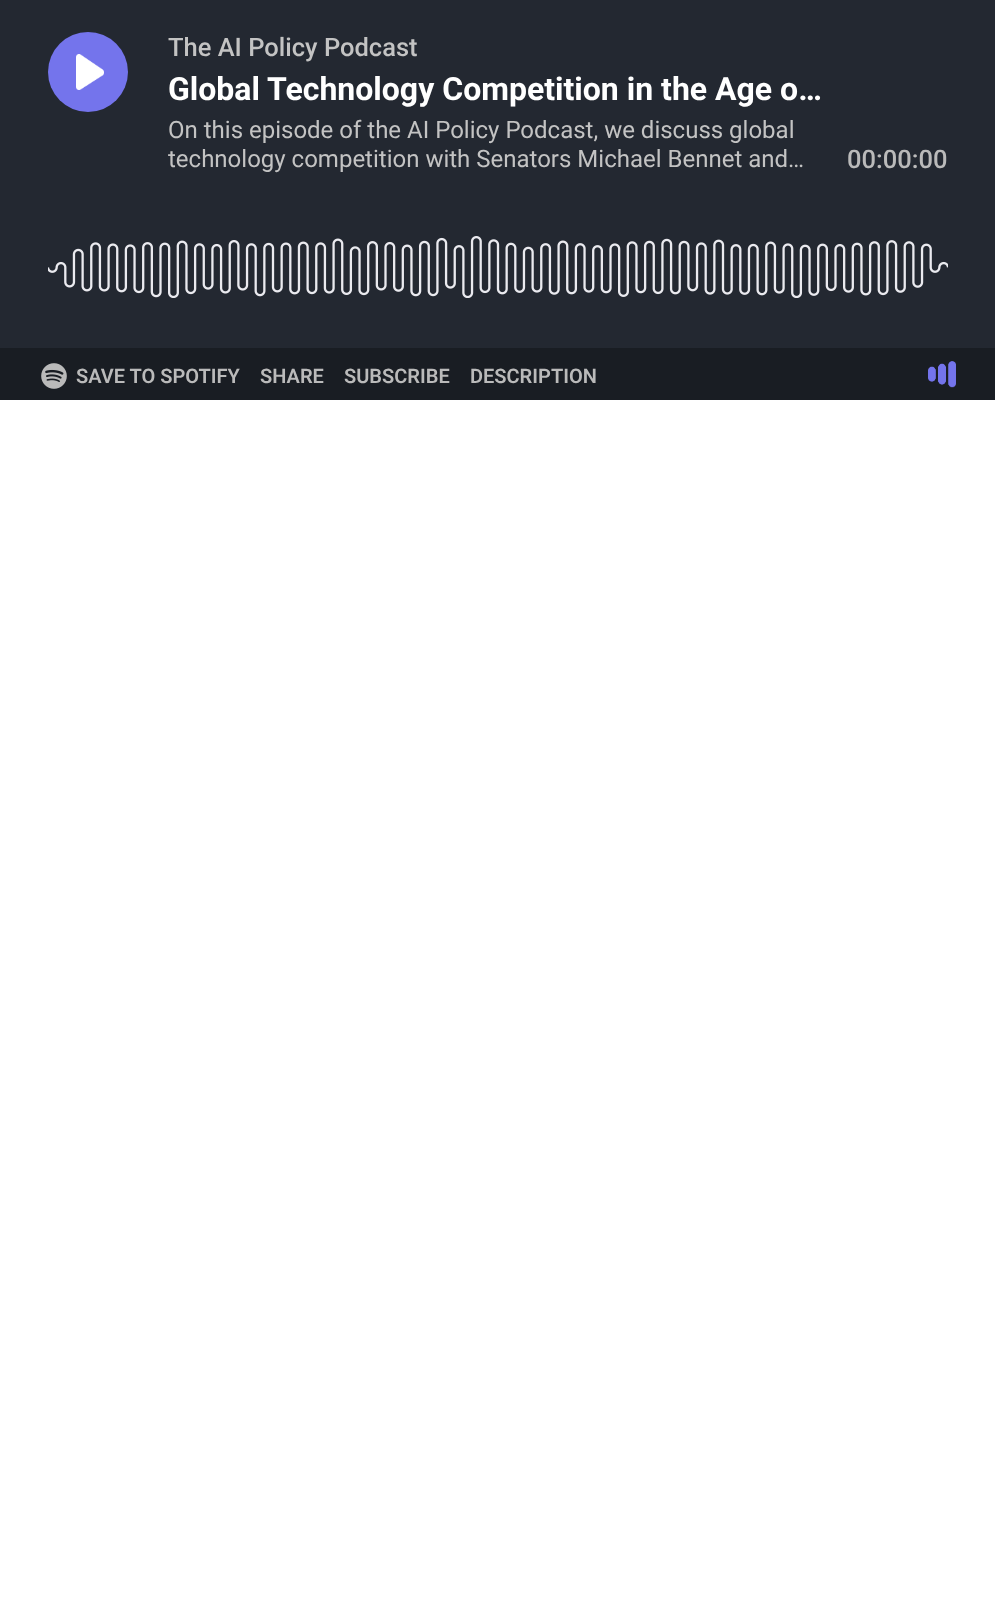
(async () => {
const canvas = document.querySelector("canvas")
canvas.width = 995
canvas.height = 1600
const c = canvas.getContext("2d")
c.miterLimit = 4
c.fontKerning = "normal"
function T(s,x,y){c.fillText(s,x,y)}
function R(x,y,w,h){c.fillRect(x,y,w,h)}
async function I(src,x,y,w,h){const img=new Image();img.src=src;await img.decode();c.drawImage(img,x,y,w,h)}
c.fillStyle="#fff"
R(0,0,995,1600)
c.fillStyle="#232831"
R(0,0,995,348)
c.fillStyle="#7474ec"
c.beginPath()
c.arc(88,72,40,0,7)
c.fill()
await I("1.png",76,54,28,36)
c.font="500 25.5px Roboto"
c.fillStyle="#c3c3c3"
T("The AI Policy Podcast",168,56)
c.font="bold 32px Roboto"
c.fillStyle="#fff"
T("Global Technology Competition in the Age o…",168,100)
c.font="24px Roboto"
c.fillStyle="#c3c3c3"
T("On this episode of the AI Policy Podcast, we discuss global",168,138)
T("technology competition with Senators Michael Bennet and…",168,167)
c.font="500 25.5px Roboto"
c.fillStyle="#bababa"
T("00:00:00",847,168)
await I("2.png",48,236,900,62)
c.fillStyle="#191d23"
R(0,348,995,52)
await I("3.png",41,363,26,26)
c.font="600 20px Roboto"
c.fillStyle="#bababa"
T("SAVE TO SPOTIFY",76,383)
T("SHARE",260,383)
T("SUBSCRIBE",344,383)
T("DESCRIPTION",470,383)
await I("4.png",928,361,28,27)
})()
